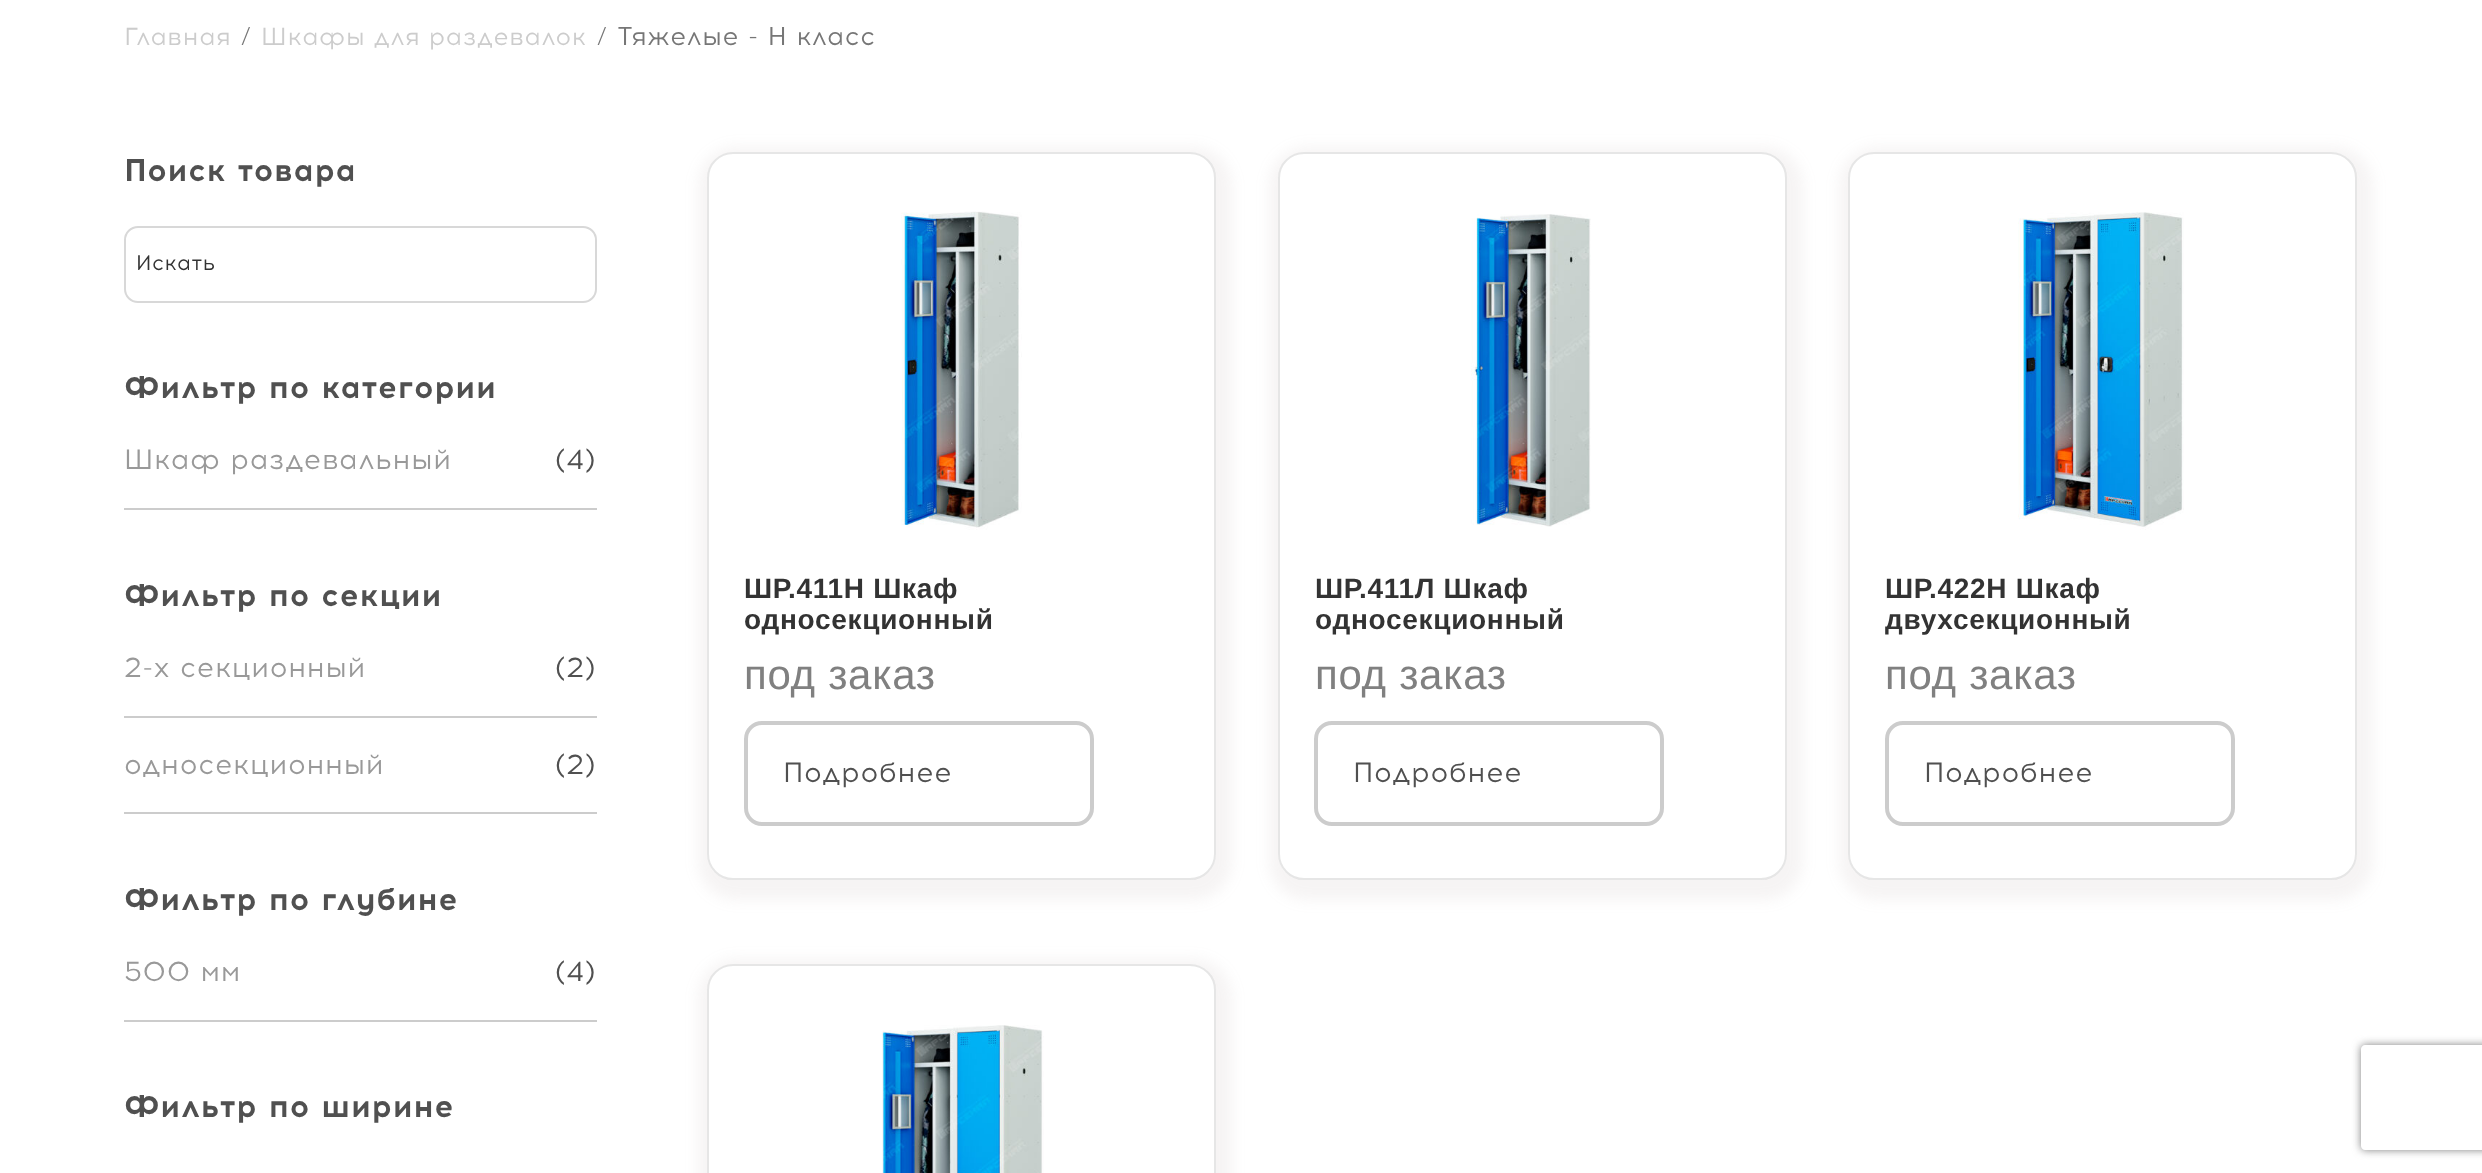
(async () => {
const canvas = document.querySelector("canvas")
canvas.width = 2482
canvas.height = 1173
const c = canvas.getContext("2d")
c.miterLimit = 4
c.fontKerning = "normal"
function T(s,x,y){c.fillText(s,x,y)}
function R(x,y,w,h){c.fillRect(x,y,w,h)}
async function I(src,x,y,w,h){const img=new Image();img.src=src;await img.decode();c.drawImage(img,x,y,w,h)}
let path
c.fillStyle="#fff"
R(0,0,2482,1173)
c.letterSpacing="0.7px"
c.font="24.5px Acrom"
c.fillStyle="#ccc"
T("Главная",124,45)
c.font="25.75px Acrom"
c.fillStyle="#767676"
T("/",240,45)
c.font="24.5px Acrom"
c.fillStyle="#ccc"
T("Шкафы для раздевалок",261,45)
c.font="25.75px Acrom"
c.fillStyle="#767676"
T("/ Тяжелые - H класс",596,45)
c.font="bold 31.5px Acrom"
c.fillStyle="#505050"
T("Поиск товара",124,181)
c.beginPath()
c.roundRect(125,227,471,75,13)
c.strokeStyle="#d8d8d8"
c.lineWidth=2
c.stroke()
c.letterSpacing="0.5px"
c.font="21px Acrom"
c.fillStyle="#333"
T("Искать",136,270)
c.letterSpacing="0.7px"
c.font="bold 31.5px Acrom"
c.fillStyle="#505050"
T("Фильтр по категории",124,398)
c.fillStyle="#ccc"
R(124,508,473,2)
c.font="28px Acrom"
c.fillStyle="#999"
T("Шкаф раздевальный",124,469)
c.fillStyle="#505050"
T("(4)",555,469)
c.font="bold 31.5px Acrom"
T("Фильтр по секции",124,606)
c.fillStyle="#ccc"
R(124,716,473,2)
c.font="28px Acrom"
c.fillStyle="#999"
T("2-х секционный",124,677)
c.fillStyle="#505050"
T("(2)",555,677)
c.fillStyle="#ccc"
R(124,812,473,2)
c.fillStyle="#999"
T("односекционный",124,774)
c.fillStyle="#505050"
T("(2)",555,774)
c.font="bold 31.5px Acrom"
T("Фильтр по глубине",124,910)
c.fillStyle="#ccc"
R(124,1020,473,2)
c.font="28px Acrom"
c.fillStyle="#999"
T("500 мм",124,981)
c.fillStyle="#505050"
T("(4)",555,981)
c.font="bold 31.5px Acrom"
T("Фильтр по ширине",124,1117)
c.save()
path = new Path2D("M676 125h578v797h-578zm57 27h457c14.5 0 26 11.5 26 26v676c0 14.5-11.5 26-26 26h-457c-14.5 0-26-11.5-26-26v-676c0-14.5 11.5-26 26-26z")
c.clip(path,"evenodd")
c.fillStyle="#a88f901a"
c.filter="blur(7px)"
c.beginPath()
c.roundRect(698,147,534,753,39)
c.fill()
c.filter="none"
c.restore()
c.beginPath()
c.roundRect(708,153,507,726,25)
c.strokeStyle="#3333331f"
c.stroke()
await I("1.png",901,211,121,319)
c.font="bold 28px Liberation Sans"
c.fillStyle="#333"
T("ШР.411Н Шкаф",744,598)
T("односекционный",744,629)
c.font="42px Liberation Sans"
c.fillStyle="#808080"
T("под заказ",744,689)
c.beginPath()
c.roundRect(746,723,346,101,16)
c.strokeStyle="#ccc"
c.lineWidth=4
c.stroke()
c.font="28px Acrom"
c.fillStyle="#505050"
T("Подробнее",783,782)
c.save()
path = new Path2D("M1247 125h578v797h-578zm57 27h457c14.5 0 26 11.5 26 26v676c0 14.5-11.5 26-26 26h-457c-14.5 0-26-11.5-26-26v-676c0-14.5 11.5-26 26-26z")
c.clip(path,"evenodd")
c.fillStyle="#a88f901a"
c.filter="blur(7px)"
c.beginPath()
c.roundRect(1269,147,534,753,39)
c.fill()
c.filter="none"
c.restore()
c.beginPath()
c.roundRect(1279,153,507,726,25)
c.strokeStyle="#3333331f"
c.lineWidth=2
c.stroke()
await I("2.png",1471,214,120,313)
c.font="bold 28px Liberation Sans"
c.fillStyle="#333"
T("ШР.411Л Шкаф",1315,598)
T("односекционный",1315,629)
c.font="42px Liberation Sans"
c.fillStyle="#808080"
T("под заказ",1315,689)
c.beginPath()
c.roundRect(1316,723,346,101,16)
c.strokeStyle="#ccc"
c.lineWidth=4
c.stroke()
c.font="28px Acrom"
c.fillStyle="#505050"
T("Подробнее",1353,782)
c.save()
path = new Path2D("M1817 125h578v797h-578zm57 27h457c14.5 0 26 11.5 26 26v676c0 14.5-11.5 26-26 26h-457c-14.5 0-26-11.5-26-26v-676c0-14.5 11.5-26 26-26z")
c.clip(path,"evenodd")
c.fillStyle="#a88f901a"
c.filter="blur(7px)"
c.beginPath()
c.roundRect(1839,147,534,753,39)
c.fill()
c.filter="none"
c.restore()
c.beginPath()
c.roundRect(1849,153,507,726,25)
c.strokeStyle="#3333331f"
c.lineWidth=2
c.stroke()
await I("3.png",2018,212,166,318)
c.font="bold 28px Liberation Sans"
c.fillStyle="#333"
T("ШР.422Н Шкаф",1885,598)
T("двухсекционный",1885,629)
c.font="42px Liberation Sans"
c.fillStyle="#808080"
T("под заказ",1885,689)
c.beginPath()
c.roundRect(1887,723,346,101,16)
c.strokeStyle="#ccc"
c.lineWidth=4
c.stroke()
c.font="28px Acrom"
c.fillStyle="#505050"
T("Подробнее",1924,782)
c.save()
path = new Path2D("M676 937h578v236h-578zm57 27h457c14.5 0 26 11.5 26 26v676c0 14.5-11.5 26-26 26h-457c-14.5 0-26-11.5-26-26v-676c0-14.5 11.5-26 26-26z")
c.clip(path,"evenodd")
c.fillStyle="#a88f901a"
c.filter="blur(7px)"
c.beginPath()
c.roundRect(698,959,534,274,39)
c.fill()
c.filter="none"
c.restore()
c.beginPath()
c.roundRect(708,965,507,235,25)
c.strokeStyle="#3333331f"
c.lineWidth=2
c.stroke()
await I("4.png",882,1025,162,148)
c.save()
path = new Path2D("M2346 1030h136v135h-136zm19 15h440c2 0 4 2 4 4v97c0 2-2 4-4 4h-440c-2 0-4-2-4-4v-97c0-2 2-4 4-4z")
c.clip(path,"evenodd")
c.fillStyle="#808080"
c.filter="blur(4.5px)"
c.beginPath()
c.roundRect(2361,1045,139,105,4)
c.fill()
c.filter="none"
c.restore()
})()
